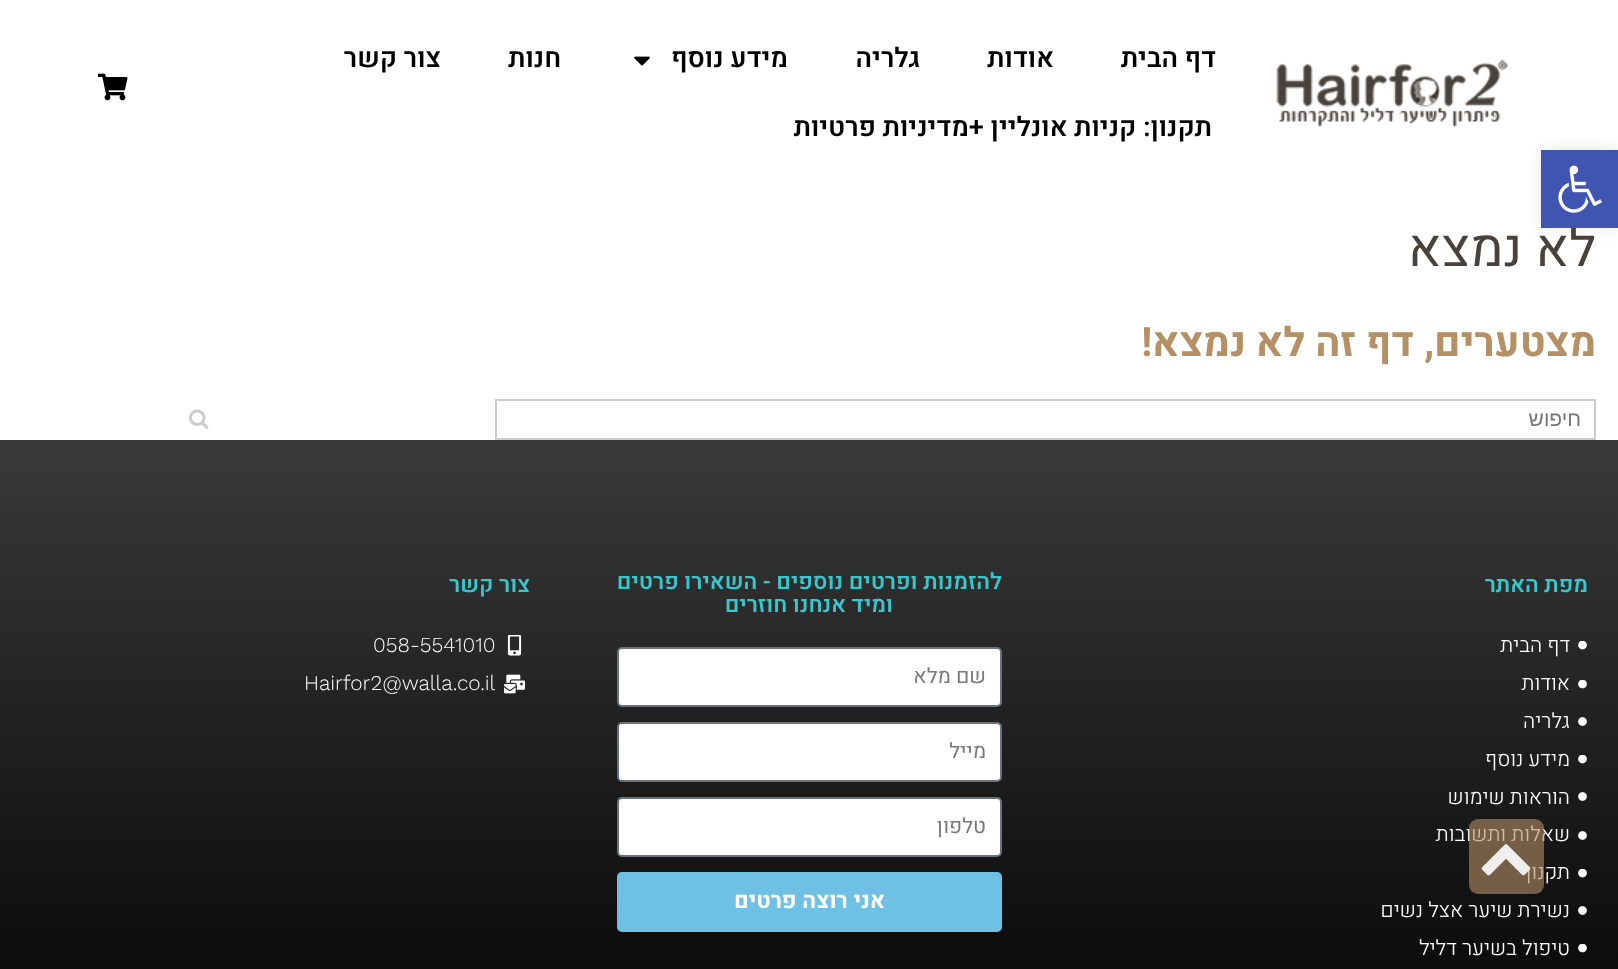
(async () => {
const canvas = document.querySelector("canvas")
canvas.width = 1618
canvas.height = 969
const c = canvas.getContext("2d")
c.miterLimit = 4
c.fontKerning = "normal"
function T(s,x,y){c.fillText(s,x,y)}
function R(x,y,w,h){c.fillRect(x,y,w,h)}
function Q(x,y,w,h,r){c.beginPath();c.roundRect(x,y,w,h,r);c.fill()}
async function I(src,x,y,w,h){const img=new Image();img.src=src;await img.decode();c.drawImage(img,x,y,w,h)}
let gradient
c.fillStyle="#fff"
R(0,0,1618,969)
await I("1.png",1276,59,232,68)
c.direction="rtl"
c.font="600 27px Heebo"
c.fillStyle="#000"
T("דף הבית",1216,67)
T("אודות",1054,67)
T("גלריה",920,67)
T("מידע נוסף",788,67)
await I("2.png",634,56,16,10)
T("חנות",561,67)
T("צור קשר",441,67)
T("תקנון: קניות אונליין +מדיניות פרטיות",1212,136)
await I("3.png",98,73,30,28)
c.fillStyle="#0000001a"
c.filter="blur(7.5px)"
c.beginPath()
c.rect(1541,150,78,78)
c.fill()
c.filter="none"
c.font="52.5px Heebo"
c.fillStyle="#49413b"
T("לא נמצא",1596,266)
c.fillStyle="#4054b2"
R(1541,150,77,78)
await I("4.png",1558,165,44,48)
c.font="bold 40.5px Heebo"
c.fillStyle="#b59064"
T("מצטערים, דף זה לא נמצא!",1596,356)
c.strokeStyle="#ccc"
c.lineWidth=2
c.strokeRect(496,400,1099,39)
c.font="21px Liberation Sans"
c.fillStyle="#757575"
T("חיפוש",1581,426)
await I("5.png",189,409,20,20)
gradient = c.createLinearGradient(809,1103,809,439)
gradient.addColorStop(0,"#000")
gradient.addColorStop(1,"#3a3a3a")
c.fillStyle = gradient
R(0,440,1618,529)
c.font="600 22.5px Heebo"
c.fillStyle="#39c7ce"
T("מפת האתר",1588,592)
await I("6.png",1578,641,9,9)
c.font="300 21px Heebo"
c.fillStyle="#fff"
T("דף הבית",1570,652)
await I("7.png",1578,680,9,9)
T("אודות",1570,690)
await I("8.png",1578,717,9,9)
T("גלריה",1570,728)
await I("9.png",1578,755,9,9)
T("מידע נוסף",1570,766)
await I("10.png",1578,792,9,9)
T("הוראות שימוש",1570,804)
await I("11.png",1578,831,9,9)
T("שאלות ותשובות",1570,841)
await I("12.png",1578,869,9,9)
T("תקנון",1570,879)
await I("13.png",1578,906,9,9)
T("נשירת שיער אצל נשים",1570,917)
await I("14.png",1578,944,9,9)
T("טיפול בשיער דליל",1570,955)
c.font="600 22.5px Heebo"
c.fillStyle="#39c7ce"
T("להזמנות ופרטים נוספים - השאירו פרטים",1002,589)
T("ומיד אנחנו חוזרים",893,612)
c.fillStyle="#fff"
c.beginPath()
c.roundRect(618,648,383,58,4)
c.fill()
c.strokeStyle="#69727d"
c.stroke()
c.font="21px Heebo"
c.fillStyle="#797a7c"
T("שם מלא",986,683)
c.fillStyle="#fff"
c.beginPath()
c.roundRect(618,723,383,58,4)
c.fill()
c.stroke()
c.fillStyle="#797a7c"
T("מייל",986,758)
c.fillStyle="#fff"
c.beginPath()
c.roundRect(618,798,383,58,4)
c.fill()
c.stroke()
c.fillStyle="#797a7c"
T("טלפון",986,833)
c.fillStyle="#6ec1e4"
Q(617,872,385,60,5)
c.font="bold 22.5px Heebo"
c.fillStyle="#fff"
T("אני רוצה פרטים",885,908)
c.font="600 22.5px Heebo"
c.fillStyle="#39c7ce"
T("צור קשר",530,592)
await I("15.png",507,635,15,21)
c.direction="ltr"
c.font="300 21px Work Sans"
c.fillStyle="#fff"
T("058-5541010",373,652)
await I("16.png",504,674,21,20)
T("Hairfor2@walla.co.il",304,690)
c.fillStyle="#b5906599"
Q(1469,819,75,75,9)
await I("17.png",1481,844,50,32)
})()
